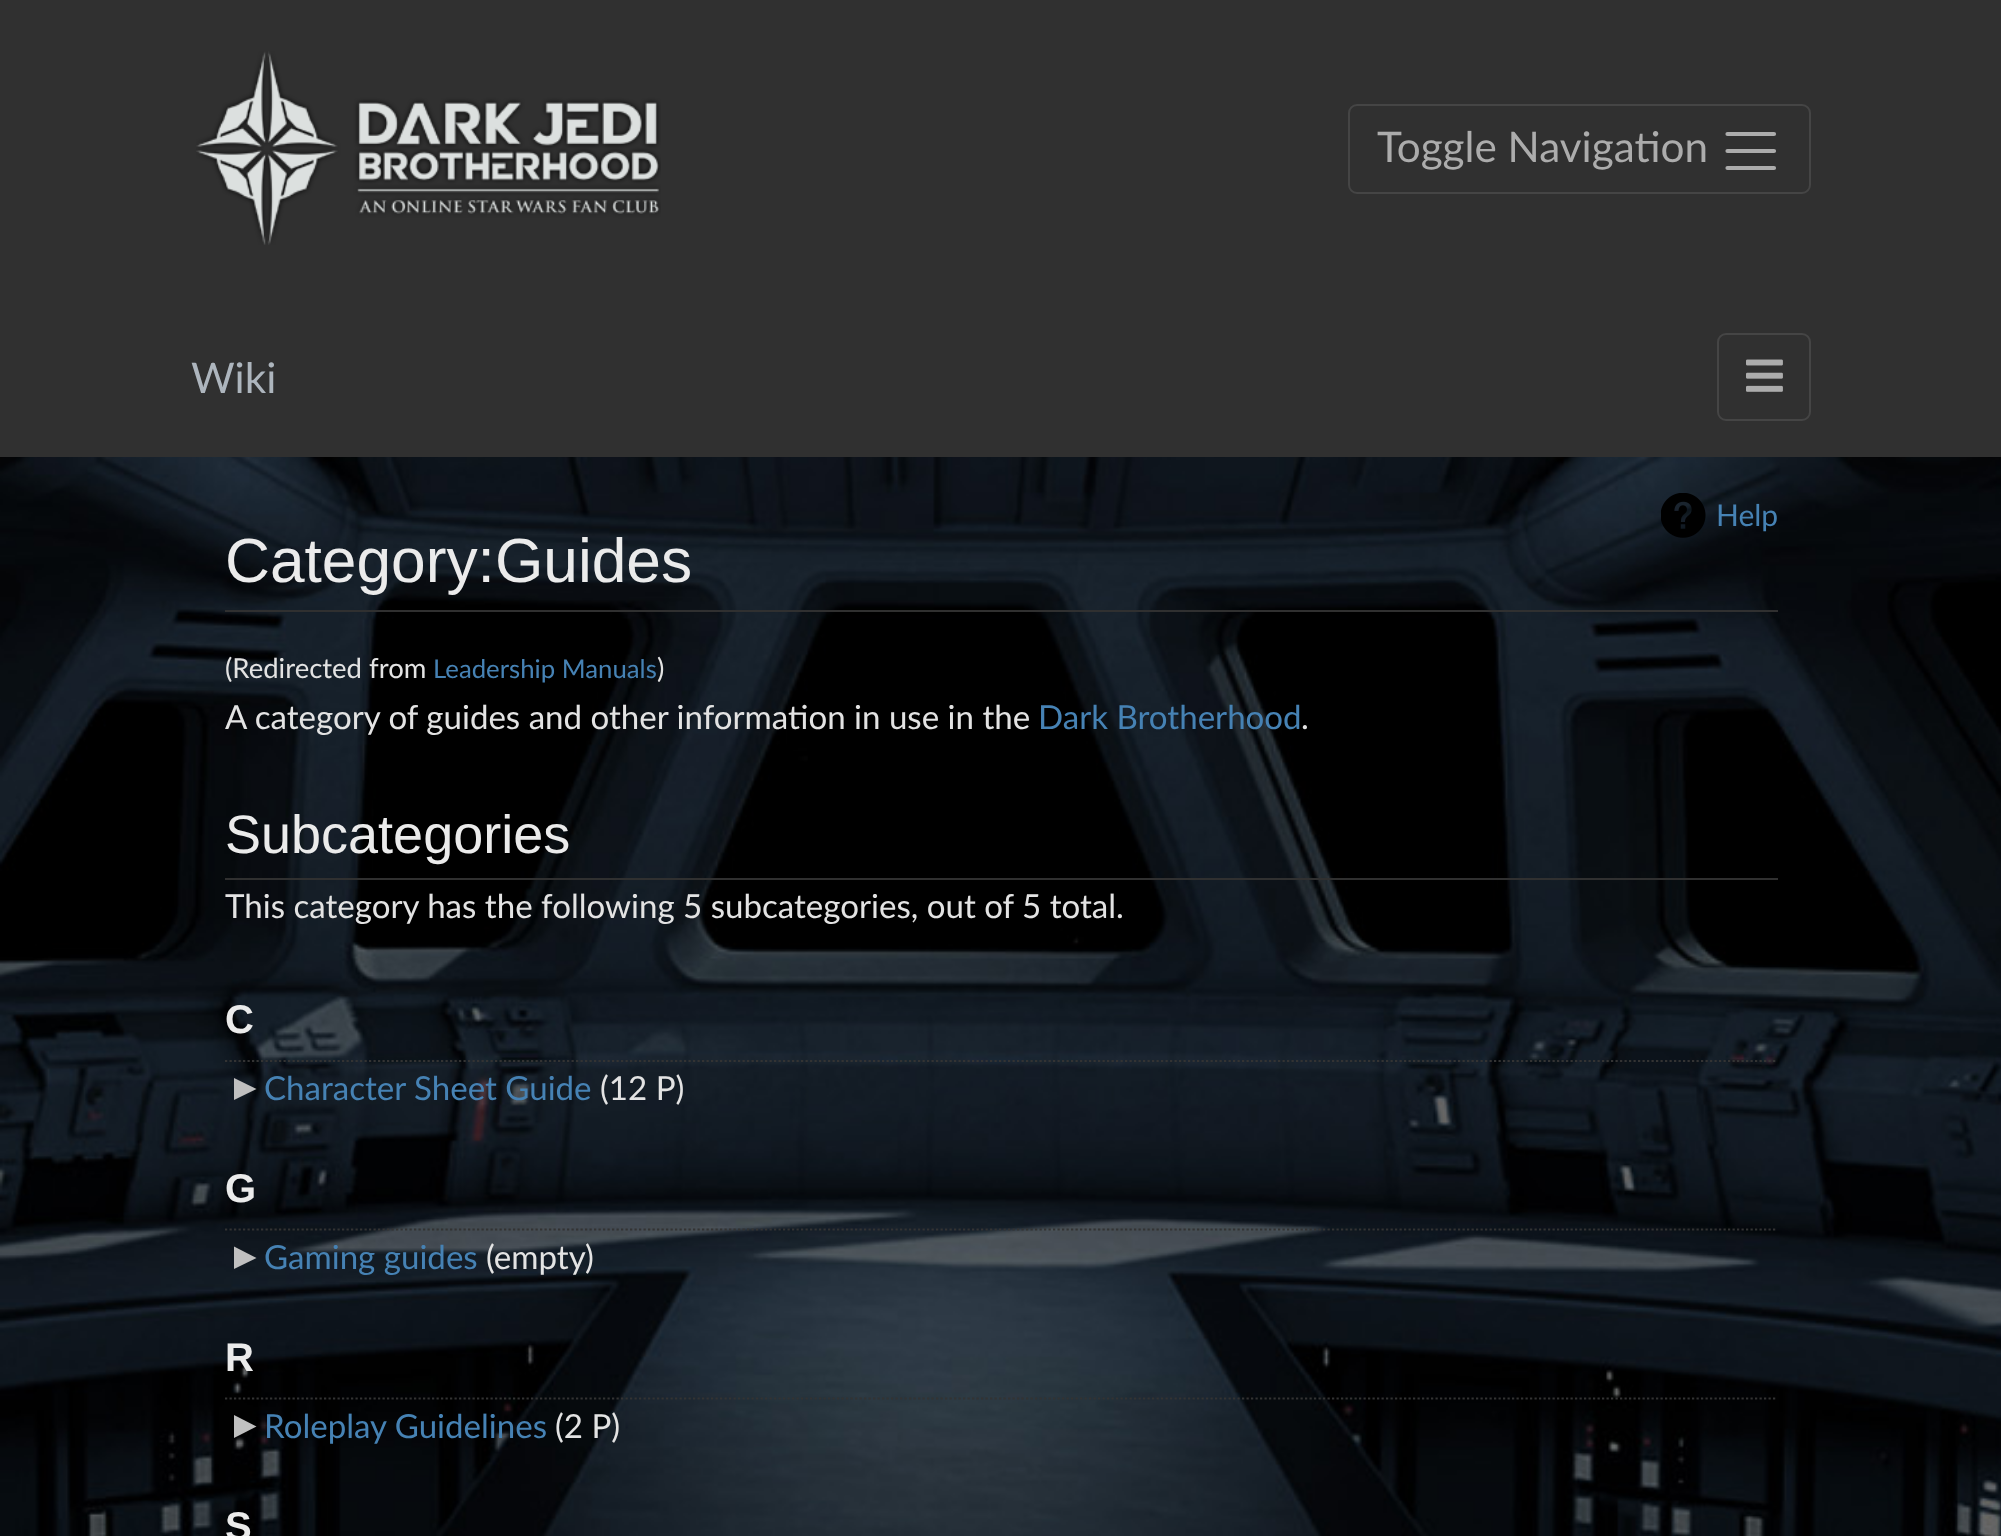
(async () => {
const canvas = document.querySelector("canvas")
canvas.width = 2001
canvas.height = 1536
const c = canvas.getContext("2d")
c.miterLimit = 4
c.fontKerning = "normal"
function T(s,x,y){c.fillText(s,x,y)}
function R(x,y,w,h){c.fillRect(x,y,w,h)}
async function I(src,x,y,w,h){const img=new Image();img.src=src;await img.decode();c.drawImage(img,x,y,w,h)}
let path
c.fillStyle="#fff"
R(0,0,2001,1536)
await I("1.png",0,457,2001,1079)
c.fillStyle="#303030"
R(0,0,2001,457)
await I("2.png",196,51,465,194)
c.beginPath()
c.roundRect(1349,105,461,88,8)
c.strokeStyle="#454545"
c.lineWidth=2
c.stroke()
c.font="42.25px Lato"
c.fillStyle="#acacac"
T("Toggle Navigation",1377,162)
path = new Path2D("M1727.5 134h46.5m-46.5 17h46.5m-46.5 17h46.5")
c.strokeStyle="#acacac"
c.lineWidth=4.2
c.lineCap="round"
c.stroke(path)
c.fillStyle="#adb5bd"
T("Wiki",191,393)
c.beginPath()
c.roundRect(1718,334,92,86,8)
c.strokeStyle="#454545"
c.lineWidth=2
c.stroke()
await I("3.png",1746,359,37,33)
await I("4.png",1661,493,45,45)
c.font="30px Lato"
c.fillStyle="#4682b4"
T("Help",1716,526)
c.fillStyle="#303030"
R(225,610,1553,2)
c.font="62.25px Liberation Sans"
c.fillStyle="#ebebeb"
T("Category:Guides",225,582)
c.font="27.5px Lato"
c.fillStyle="#e3e3e3"
T("(Redirected from",225,678)
c.font="25.75px Lato"
c.fillStyle="#4682b4"
T("Leadership Manuals",433,678)
c.font="27.5px Lato"
c.fillStyle="#e3e3e3"
T(")",657,678)
c.font="33.1px Lato"
T("A category of guides and other information in use in the",225,729)
c.fillStyle="#4682b4"
T("Dark Brotherhood",1038,729)
c.fillStyle="#e3e3e3"
T(".",1301,729)
c.fillStyle="#303030"
R(225,878,1553,2)
c.font="54px Liberation Sans"
c.fillStyle="#ebebeb"
T("Subcategories",225,853)
c.font="33.1px Lato"
c.fillStyle="#e3e3e3"
T("This category has the following 5 subcategories, out of 5 total.",225,918)
path = new Path2D("M225 1061h1552.5")
c.strokeStyle="#333"
c.lineWidth=2.2
c.lineCap="butt"
c.setLineDash([2.25,2.25])
c.stroke(path)
c.font="bold 40px Liberation Sans"
c.fillStyle="#ebebeb"
T("C",225,1033)
c.fillStyle="#c0c0c0"
path = new Path2D("M234 1100v-22l22.5 11z")
c.fill(path)
c.font="33.1px Lato"
c.fillStyle="#4682b4"
T("Character Sheet Guide",264,1100)
c.fillStyle="#e3e3e3"
T("(12 P)",600,1100)
path = new Path2D("M225 1229.5h1552.5")
c.stroke(path)
c.font="bold 40px Liberation Sans"
c.fillStyle="#ebebeb"
T("G",225,1202)
c.fillStyle="#c0c0c0"
path = new Path2D("M234 1269v-22.5l22.5 11.5z")
c.fill(path)
c.font="33.1px Lato"
c.fillStyle="#4682b4"
T("Gaming guides",264,1269)
c.fillStyle="#e3e3e3"
T("(empty)",486,1269)
path = new Path2D("M225 1398.5h1552.5")
c.stroke(path)
c.font="bold 40px Liberation Sans"
c.fillStyle="#ebebeb"
T("R",225,1371)
c.fillStyle="#c0c0c0"
path = new Path2D("M234 1438v-23l22.5 11.5z")
c.fill(path)
c.font="33.1px Lato"
c.fillStyle="#4682b4"
T("Roleplay Guidelines",264,1438)
c.fillStyle="#e3e3e3"
T("(2 P)",555,1438)
c.font="bold 40px Liberation Sans"
c.fillStyle="#ebebeb"
T("S",225,1540)
})()
